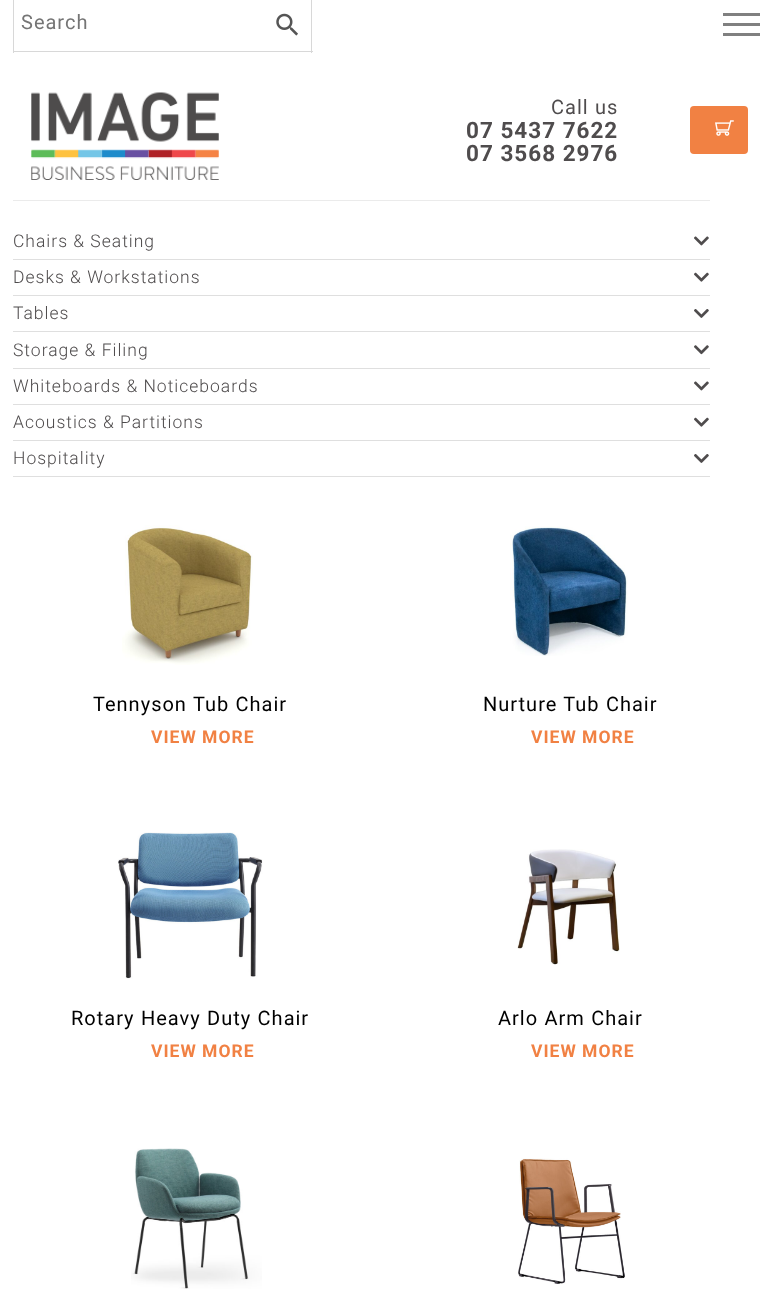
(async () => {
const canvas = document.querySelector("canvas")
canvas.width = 760
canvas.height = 1293
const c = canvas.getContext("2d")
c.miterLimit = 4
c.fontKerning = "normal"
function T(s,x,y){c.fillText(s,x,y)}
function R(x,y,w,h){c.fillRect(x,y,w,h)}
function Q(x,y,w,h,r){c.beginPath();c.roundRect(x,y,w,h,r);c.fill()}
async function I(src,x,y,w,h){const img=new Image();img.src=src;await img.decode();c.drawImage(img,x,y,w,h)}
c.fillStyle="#fff"
R(0,0,760,1293)
c.fillStyle="#d8d8d8"
R(311,0,1,53)
R(260,51,53,1)
c.fillStyle="#fff"
R(260,51,1,2)
c.fillStyle="#d8d8d8"
R(13,51,248,1)
R(13,0,1,53)
c.letterSpacing="1px"
c.font="20px Vazirmatn"
c.fillStyle="#757575"
T("Search",21,29)
await I("1.png",276,13,22,23)
await I("2.png",31,92,188,88)
c.fillStyle="#4f4c4d"
T("Call us",551,114)
c.font="bold 22.5px Roboto"
T("07 5437 7622",466,138)
T("07 3568 2976",466,161)
c.fillStyle="#f18143"
Q(690,106,58,48,4)
await I("3.png",715,120,19,16)
c.fillStyle="#808080"
R(723,13,37,3)
R(723,23,37,3)
R(723,33,37,3)
c.fillStyle="#ebebeb"
R(13,200,697,1)
c.fillStyle="#dfdfdf"
R(13,259,697,1)
c.font="300 17.5px Roboto"
c.fillStyle="#4f4c4d"
T("Chairs & Seating",13,247)
await I("4.png",694,236,15,10)
c.fillStyle="#dfdfdf"
R(13,295,697,1)
c.fillStyle="#4f4c4d"
T("Desks & Workstations",13,283)
await I("5.png",694,272,15,10)
c.fillStyle="#dfdfdf"
R(13,331,697,1)
c.fillStyle="#4f4c4d"
T("Tables",13,319)
await I("6.png",694,309,15,9)
c.fillStyle="#dfdfdf"
R(13,368,697,1)
c.fillStyle="#4f4c4d"
T("Storage & Filing",13,356)
await I("7.png",694,345,15,10)
c.fillStyle="#dfdfdf"
R(13,404,697,1)
c.fillStyle="#4f4c4d"
T("Whiteboards & Noticeboards",13,392)
await I("4.png",694,381,15,10)
c.fillStyle="#dfdfdf"
R(13,440,697,1)
c.fillStyle="#4f4c4d"
T("Acoustics & Partitions",13,428)
await I("5.png",694,417,15,10)
c.fillStyle="#dfdfdf"
R(13,476,697,1)
c.fillStyle="#4f4c4d"
T("Hospitality",13,464)
await I("6.png",694,454,15,9)
await I("8.png",122,525,131,140)
c.font="20px Vazirmatn"
c.fillStyle="#000"
T("Tennyson Tub Chair",93,711)
c.font="bold 17.5px Vazirmatn"
c.fillStyle="#f18143"
T("VIEW MORE",151,743)
await I("9.png",510,526,118,130)
c.font="20px Vazirmatn"
c.fillStyle="#000"
T("Nurture Tub Chair",483,711)
c.font="bold 17.5px Vazirmatn"
c.fillStyle="#f18143"
T("VIEW MORE",531,743)
await I("10.png",118,832,145,147)
c.font="20px Vazirmatn"
c.fillStyle="#000"
T("Rotary Heavy Duty Chair",71,1025)
c.font="bold 17.5px Vazirmatn"
c.fillStyle="#f18143"
T("VIEW MORE",151,1057)
await I("11.png",517,849,103,116)
c.font="20px Vazirmatn"
c.fillStyle="#000"
T("Arlo Arm Chair",498,1025)
c.font="bold 17.5px Vazirmatn"
c.fillStyle="#f18143"
T("VIEW MORE",531,1057)
await I("12.png",131,1148,131,141)
await I("13.png",518,1158,107,126)
})()
